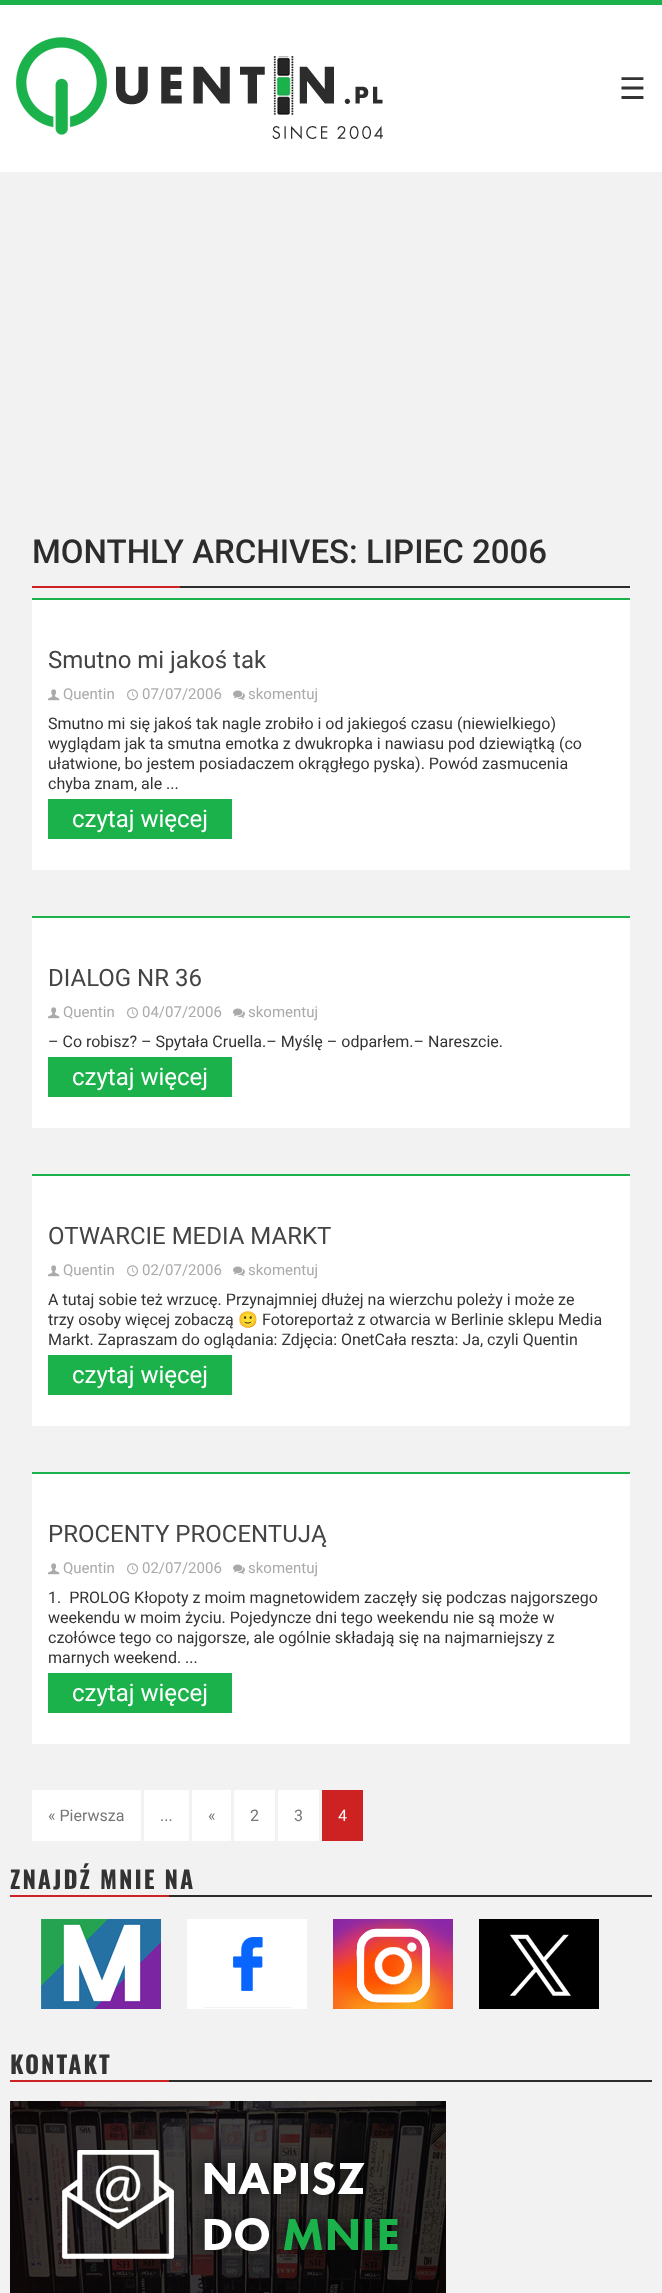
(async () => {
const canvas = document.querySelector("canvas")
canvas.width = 662
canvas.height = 2293
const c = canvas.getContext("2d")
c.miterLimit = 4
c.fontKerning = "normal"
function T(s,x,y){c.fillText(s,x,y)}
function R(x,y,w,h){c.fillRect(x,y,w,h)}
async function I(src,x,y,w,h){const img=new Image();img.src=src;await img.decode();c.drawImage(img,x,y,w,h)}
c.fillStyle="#f2f2f2"
R(0,0,662,2293)
c.fillStyle="#1bb24c"
R(0,0,662,5)
c.fillStyle="#fff"
R(0,5,662,167)
await I("1.png",16,37,367,103)
c.font="30px DejaVu Sans"
c.fillStyle="#333"
T("☰",619,99)
await I("2.png",32,586,598,2)
c.font="500 33px Roboto"
c.fillStyle="#2c2c2c"
T("MONTHLY ARCHIVES: LIPIEC 2006",32,563)
c.fillStyle="#fff"
R(32,600,598,270)
c.fillStyle="#1bb24c"
R(32,598,598,2)
c.font="24px Roboto"
c.fillStyle="#444"
T("Smutno mi jakoś tak",48,668)
await I("3.png",48,689,12,12)
c.font="15px Roboto"
c.fillStyle="#aaa"
T("Quentin",63,699)
await I("4.png",127,689,11,12)
T("07/07/2006",142,699)
await I("5.png",233,690,12,10)
T("skomentuj",248,699)
c.font="16px Roboto"
c.fillStyle="#333"
T("Smutno mi się jakoś tak nagle zrobiło i od jakiegoś czasu (niewielkiego)",48,729)
T("wyglądam jak ta smutna emotka z dwukropka i nawiasu pod dziewiątką (co",48,749)
T("ułatwione, bo jestem posiadaczem okrągłego pyska). Powód zasmucenia",48,769)
T("chyba znam, ale ...",48,789)
c.fillStyle="#1bb24c"
R(48,799,184,40)
c.font="24px Roboto"
c.fillStyle="#fff"
T("czytaj więcej",72,827)
R(32,918,598,210)
c.fillStyle="#1bb24c"
R(32,916,598,2)
c.fillStyle="#444"
T("DIALOG NR 36",48,986)
await I("3.png",48,1007,12,12)
c.font="15px Roboto"
c.fillStyle="#aaa"
T("Quentin",63,1017)
await I("4.png",127,1007,11,12)
T("04/07/2006",142,1017)
await I("5.png",233,1008,12,10)
T("skomentuj",248,1017)
c.font="16px Roboto"
c.fillStyle="#333"
T("– Co robisz? – Spytała Cruella.– Myślę – odparłem.– Nareszcie.",48,1047)
c.fillStyle="#1bb24c"
R(48,1057,184,40)
c.font="24px Roboto"
c.fillStyle="#fff"
T("czytaj więcej",72,1085)
R(32,1176,598,250)
c.fillStyle="#1bb24c"
R(32,1174,598,2)
c.fillStyle="#444"
T("OTWARCIE MEDIA MARKT",48,1244)
await I("3.png",48,1265,12,12)
c.font="15px Roboto"
c.fillStyle="#aaa"
T("Quentin",63,1275)
await I("4.png",127,1265,11,12)
T("02/07/2006",142,1275)
await I("5.png",233,1266,12,10)
T("skomentuj",248,1275)
c.font="16px Roboto"
c.fillStyle="#333"
T("A tutaj sobie też wrzucę. Przynajmniej dłużej na wierzchu poleży i może ze",48,1305)
T("trzy osoby więcej zobaczą",48,1325)
c.font="16px Noto Color Emoji"
T("🙂",238,1325)
c.font="16px Roboto"
T("Fotoreportaż z otwarcia w Berlinie sklepu Media",262,1325)
T("Markt. Zapraszam do oglądania: Zdjęcia: OnetCała reszta: Ja, czyli Quentin",48,1345)
c.fillStyle="#1bb24c"
R(48,1355,184,40)
c.font="24px Roboto"
c.fillStyle="#fff"
T("czytaj więcej",72,1383)
R(32,1474,598,270)
c.fillStyle="#1bb24c"
R(32,1472,598,2)
c.fillStyle="#444"
T("PROCENTY PROCENTUJĄ",48,1542)
await I("3.png",48,1563,12,12)
c.font="15px Roboto"
c.fillStyle="#aaa"
T("Quentin",63,1573)
await I("4.png",127,1563,11,12)
T("02/07/2006",142,1573)
await I("5.png",233,1564,12,10)
T("skomentuj",248,1573)
c.font="16px Roboto"
c.fillStyle="#333"
T("1.  PROLOG Kłopoty z moim magnetowidem zaczęły się podczas najgorszego",48,1603)
T("weekendu w moim życiu. Pojedyncze dni tego weekendu nie są może w",48,1623)
T("czołówce tego co najgorsze, ale ogólnie składają się na najmarniejszy z",48,1643)
T("marnych weekend. ...",48,1663)
c.fillStyle="#1bb24c"
R(48,1673,184,40)
c.font="24px Roboto"
c.fillStyle="#fff"
T("czytaj więcej",72,1701)
R(32,1790,109,51)
c.font="16px Roboto"
c.fillStyle="#777"
T("« Pierwsza",48,1821)
c.fillStyle="#fff"
R(192,1790,39,51)
c.fillStyle="#777"
T("«",208,1821)
c.fillStyle="#fff"
R(234,1790,41,51)
c.fillStyle="#777"
T("2",250,1821)
c.fillStyle="#fff"
R(278,1790,41,51)
c.fillStyle="#777"
T("3",294,1821)
c.fillStyle="#cd2122"
R(322,1790,41,51)
c.fillStyle="#fff"
T("4",338,1821)
R(144,1790,45,51)
c.fillStyle="#777"
T("...",160,1821)
await I("6.png",10,1895,642,2)
c.letterSpacing="2px"
c.font="bold 24px Oswald"
c.fillStyle="#333"
T("ZNAJDŹ MNIE NA",10,1889)
await I("7.png",41,1919,120,90)
await I("8.png",187,1919,120,90)
await I("9.png",333,1919,120,90)
await I("10.png",479,1919,120,90)
await I("6.png",10,2080,642,2)
T("KONTAKT",10,2074)
await I("11.png",10,2101,436,192)
})()
